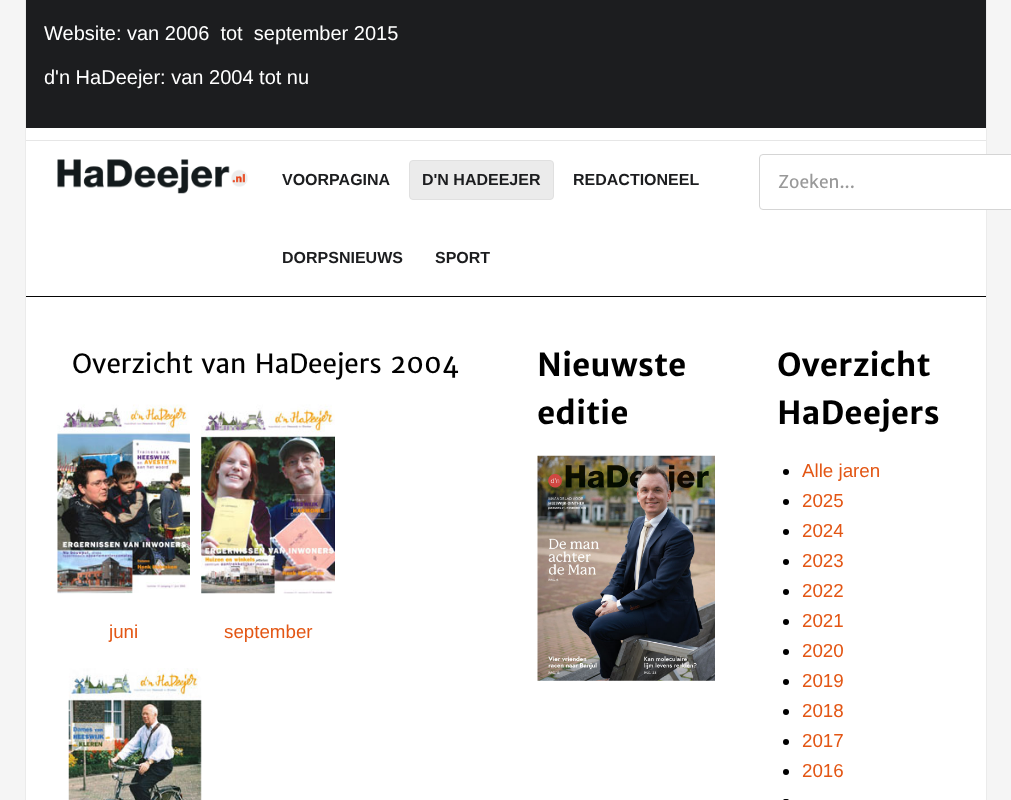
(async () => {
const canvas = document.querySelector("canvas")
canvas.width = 1011
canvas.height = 800
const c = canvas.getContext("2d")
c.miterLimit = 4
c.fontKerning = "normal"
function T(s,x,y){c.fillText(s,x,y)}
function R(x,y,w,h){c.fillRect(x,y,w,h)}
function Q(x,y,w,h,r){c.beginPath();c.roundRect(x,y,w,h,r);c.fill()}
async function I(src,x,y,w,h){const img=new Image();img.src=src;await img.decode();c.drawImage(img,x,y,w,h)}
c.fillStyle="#f5f5f5"
R(0,0,1011,800)
c.fillStyle="#ebebeb"
R(986,0,1,800)
R(25,0,1,800)
c.fillStyle="#fff"
R(26,128,960,12)
c.fillStyle="#e6e6e6"
R(26,140,960,1)
c.fillStyle="#1c1d1f"
R(26,0,960,128)
c.font="20px Liberation Sans"
c.fillStyle="#fff"
T("Website: van 2006  tot  september 2015",44,40)
T("d'n HaDeejer: van 2004 tot nu",44,84)
R(26,141,960,659)
c.fillStyle="#040404"
R(26,296,960,1)
await I("1.png",57,159,191,35)
c.font="bold 16px Liberation Sans"
c.fillStyle="#1c1d1f"
T("VOORPAGINA",282,185)
c.fillStyle="#ebebeb"
c.beginPath()
c.roundRect(409.5,160.5,144,39,3.5)
c.fill()
c.strokeStyle="#e0e0e0"
c.stroke()
c.fillStyle="#1c1d1f"
T("D'N HADEEJER",422,185)
T("REDACTIONEEL",573,185)
T("DORPSNIEUWS",282,263)
T("SPORT",435,263)
c.fillStyle="#fff"
c.beginPath()
c.roundRect(759,154,252,56,[4,0,0,4])
c.fill()
c.beginPath()
c.roundRect(759.5,154.5,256,55,3.5)
c.strokeStyle="#d5d5d5"
c.stroke()
c.font="17.5px Merriweather Sans"
c.fillStyle="#999"
T("Zoeken...",778,188)
c.font="26.25px Merriweather Sans"
c.fillStyle="#000"
T("Overzicht van HaDeejers 2004",72,373)
await I("2.png",57,404,133,190)
c.font="18.75px Liberation Sans"
c.fillStyle="#e35614"
T("juni",109,638)
await I("3.png",201,404,134,190)
T("september",224,638)
await I("4.png",68,668,134,132)
c.font="bold 31.5px Merriweather Sans"
c.fillStyle="#000"
T("Nieuwste",537,376)
T("editie",537,424)
await I("5.png",537,455,178,226)
T("Overzicht",777,376)
T("HaDeejers",777,424)
c.beginPath()
c.arc(786,472,3,0,7)
c.fill()
c.font="18.75px Liberation Sans"
c.fillStyle="#e35614"
T("Alle jaren",802,477)
c.fillStyle="#000"
c.beginPath()
c.arc(786,502,3,0,7)
c.fill()
c.fillStyle="#e35614"
T("2025",802,507)
c.fillStyle="#000"
c.beginPath()
c.arc(786,532,3,0,7)
c.fill()
c.fillStyle="#e35614"
T("2024",802,537)
c.fillStyle="#000"
c.beginPath()
c.arc(786,562,3,0,7)
c.fill()
c.fillStyle="#e35614"
T("2023",802,567)
c.fillStyle="#000"
c.beginPath()
c.arc(786,592,3,0,7)
c.fill()
c.fillStyle="#e35614"
T("2022",802,597)
c.fillStyle="#000"
c.beginPath()
c.arc(786,622,3,0,7)
c.fill()
c.fillStyle="#e35614"
T("2021",802,627)
c.fillStyle="#000"
c.beginPath()
c.arc(786,652,3,0,7)
c.fill()
c.fillStyle="#e35614"
T("2020",802,657)
c.fillStyle="#000"
c.beginPath()
c.arc(786,682,3,0,7)
c.fill()
c.fillStyle="#e35614"
T("2019",802,687)
c.fillStyle="#000"
c.beginPath()
c.arc(786,712,3,0,7)
c.fill()
c.fillStyle="#e35614"
T("2018",802,717)
c.fillStyle="#000"
c.beginPath()
c.arc(786,742,3,0,7)
c.fill()
c.fillStyle="#e35614"
T("2017",802,747)
c.fillStyle="#000"
c.beginPath()
c.arc(786,772,3,0,7)
c.fill()
c.fillStyle="#e35614"
T("2016",802,777)
c.fillStyle="#000"
Q(783,799,6,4,3)
})()
